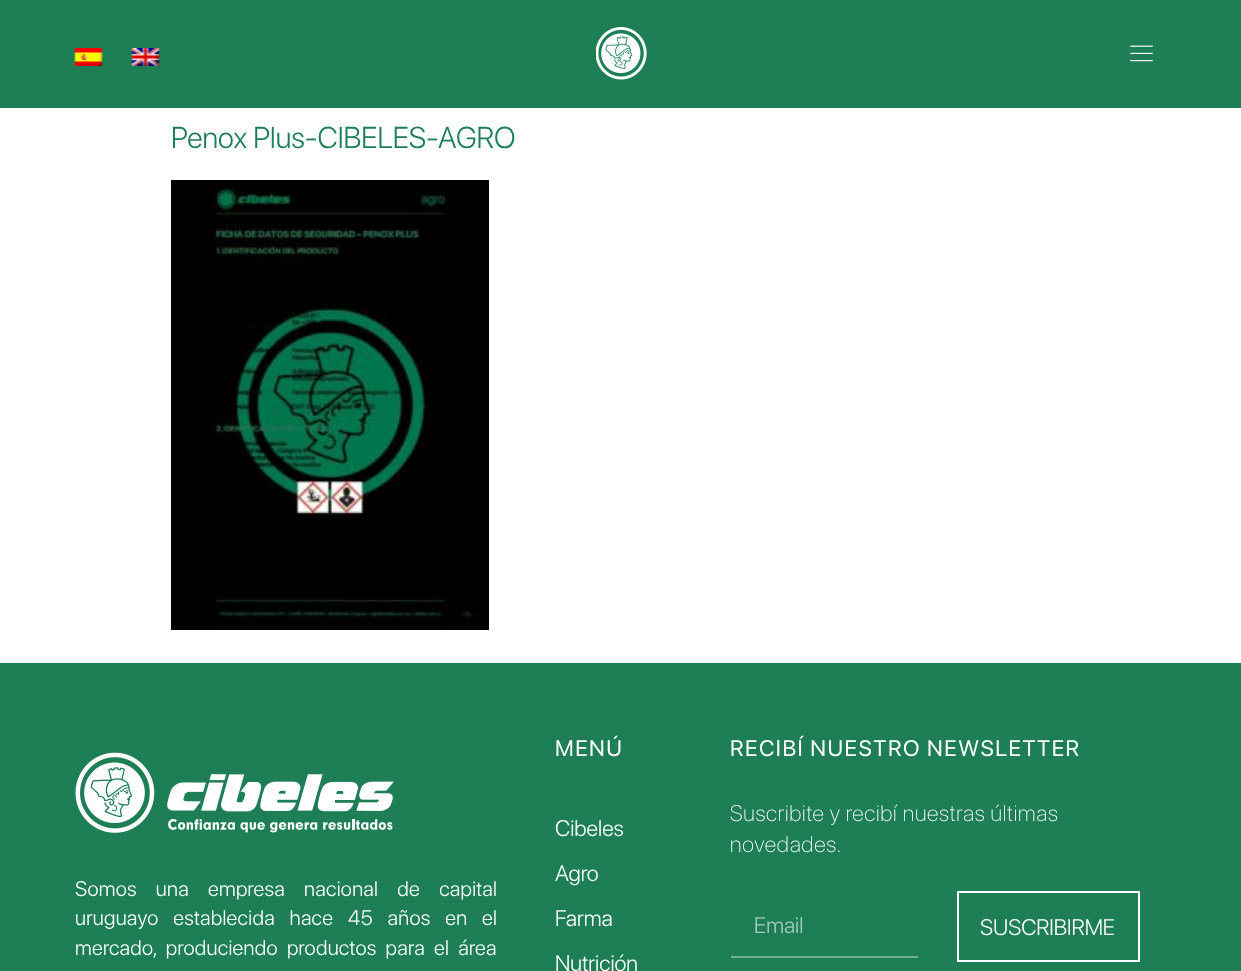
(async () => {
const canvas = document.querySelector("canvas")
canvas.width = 1241
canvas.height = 971
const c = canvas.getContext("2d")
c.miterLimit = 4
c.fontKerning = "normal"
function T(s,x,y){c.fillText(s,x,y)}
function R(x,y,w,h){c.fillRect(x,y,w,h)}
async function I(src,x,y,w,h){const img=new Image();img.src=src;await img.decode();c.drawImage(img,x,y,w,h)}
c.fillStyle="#fff"
R(0,0,1241,971)
c.fillStyle="#1e7e55"
R(0,0,1241,108)
await I("1.png",74,48,29,18)
await I("2.png",131,48,29,18)
await I("3.png",596,27,51,53)
await I("4.png",1130,45,23,17)
c.font="300 30px SF Pro Display"
T("Penox Plus-CIBELES-AGRO",171,148)
await I("5.png",171,180,318,450)
R(0,663,1241,308)
await I("6.png",75,752,319,81)
c.letterSpacing="0.3px"
c.wordSpacing="14.5px"
c.font="300 21px SF Pro Display"
c.fillStyle="#fff"
T("Somos una empresa nacional de capital",75,896)
c.wordSpacing="10px"
T("uruguayo establecida hace 45 años en el",75,925)
c.wordSpacing="4.5px"
T("mercado, produciendo productos para el área",75,955)
c.letterSpacing="1.5px"
c.wordSpacing="0px"
c.font="22.5px SF Pro Display"
T("MENÚ",555,756)
c.letterSpacing="0px"
c.font="300 22.5px SF Pro Display"
T("Cibeles",555,836)
T("Agro",555,881)
T("Farma",555,926)
T("Nutrición",555,971)
c.letterSpacing="1.5px"
c.font="22.5px SF Pro Display"
T("RECIBÍ NUESTRO NEWSLETTER",730,756)
c.letterSpacing="0.75px"
c.font="100 22.5px SF Pro Display"
T("Suscribite y recibí nuestras últimas",730,821)
T("novedades.",730,852)
c.fillStyle="#71ae94"
R(731,956,187,2)
c.letterSpacing="0px"
c.font="300 22.5px SF Pro Display"
c.fillStyle="#a5cbbb"
T("Email",754,933)
c.strokeStyle="#fff"
c.lineWidth=2
c.strokeRect(958,892,181,69)
c.fillStyle="#fff"
T("SUSCRIBIRME",980,935)
})()
